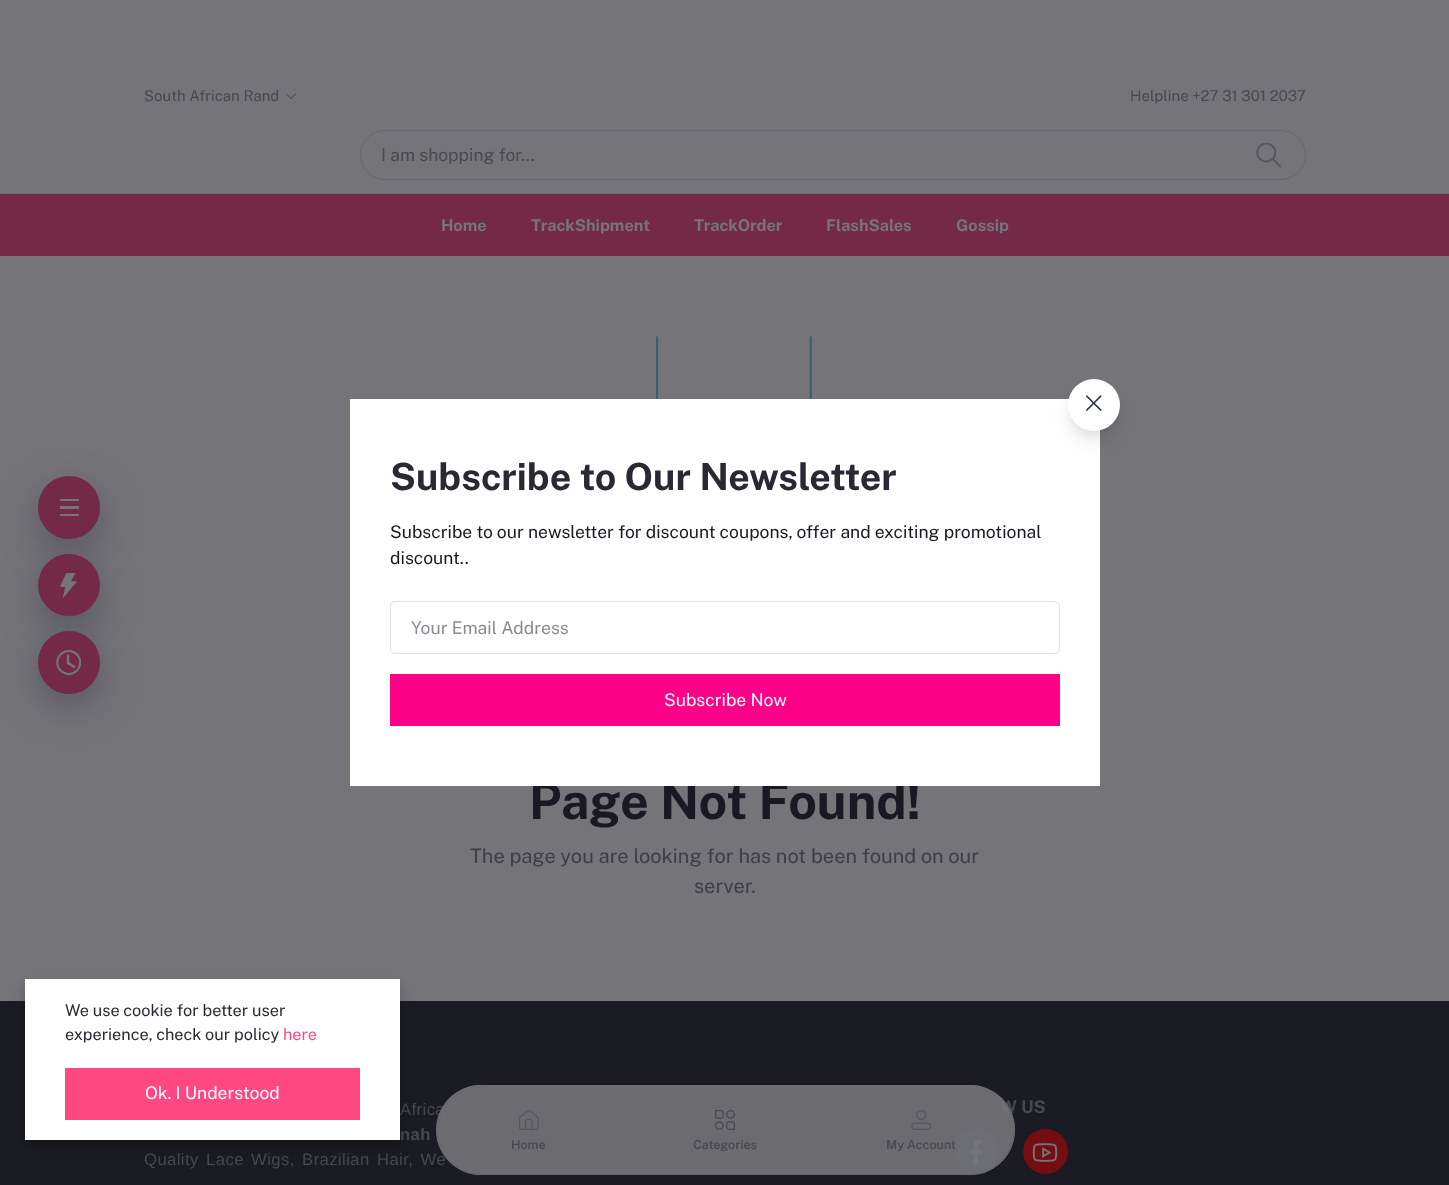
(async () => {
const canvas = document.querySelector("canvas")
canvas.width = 1449
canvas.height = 1185
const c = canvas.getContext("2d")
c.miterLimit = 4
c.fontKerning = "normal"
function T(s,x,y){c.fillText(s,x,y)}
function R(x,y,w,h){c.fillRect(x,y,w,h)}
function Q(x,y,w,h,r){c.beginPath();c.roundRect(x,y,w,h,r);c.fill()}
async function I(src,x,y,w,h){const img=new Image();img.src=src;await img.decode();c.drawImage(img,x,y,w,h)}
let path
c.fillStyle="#747479"
R(0,0,1449,1185)
c.fillStyle="#38383d80"
c.filter="blur(19px)"
c.beginPath()
c.roundRect(38,489,62,62,31)
c.fill()
c.filter="none"
c.filter="blur(19px)"
c.beginPath()
c.roundRect(38,566,62,63,31)
c.fill()
c.filter="none"
c.fillStyle="#742a47"
Q(38,476,62,63,31)
c.fillStyle="#747479"
R(60,506,19,3)
R(60,499,19,2)
R(60,514,19,2)
c.fillStyle="#38383d80"
c.filter="blur(19px)"
c.beginPath()
c.roundRect(38,644,62,62,31)
c.fill()
c.filter="none"
c.fillStyle="#742a47"
c.beginPath()
c.arc(69,585,31,0,7)
c.fill()
await I("1.png",60,573,17,25)
Q(38,631,62,63,31)
await I("2.png",56,650,25,25)
c.font="15px Public Sans"
c.fillStyle="#484850"
T("South African Rand",144,101)
await I("3.png",286,93,10,6)
T("Helpline +27 31 301 2037",1130,101)
c.fillStyle="#6d6d73"
R(0,193,1449,1)
c.beginPath()
c.roundRect(360.5,130.5,945,49,24.5)
c.strokeStyle="#67676f"
c.stroke()
c.font="17.5px Public Sans"
c.fillStyle="#484850"
T("I am shopping for...",381,161)
await I("4.png",1256,143,25,25)
c.fillStyle="#742a47"
R(0,194,1449,62)
c.font="bold 16.25px Public Sans"
c.fillStyle="#747479"
T("Home",441,231)
T("TrackShipment",531,231)
T("TrackOrder",694,231)
T("FlashSales",826,231)
T("Gossip",956,231)
await I("5.png",656,336,156,63)
c.font="bold 50px Public Sans"
c.fillStyle="#191923"
T("Page Not Found!",529,819)
c.font="20px Public Sans"
c.fillStyle="#3d3d45"
T("The page you are looking for has not been found on our",470,863)
T("server.",694,893)
c.fillStyle="#1b1b23"
R(0,1001,1449,184)
c.letterSpacing="0.4px"
c.wordSpacing="2px"
c.font="16.7px Liberation Sans"
c.fillStyle="#484850"
T("Africa",400,1115)
c.wordSpacing="3px"
c.font="bold 16.7px Liberation Sans"
T("nah",400,1140)
c.wordSpacing="2.25px"
c.font="16.7px Liberation Sans"
T("Quality Lace Wigs, Brazilian Hair, We",144,1165)
c.letterSpacing="0px"
c.wordSpacing="0px"
c.font="bold 17.5px Public Sans"
T("W US",1000,1113)
c.fillStyle="#25314f"
c.beginPath()
c.arc(976.5,1151.5,22.5,0,7)
c.fill()
await I("6.png",968,1139,15,27)
c.fillStyle="#740e13"
c.beginPath()
c.arc(1045.5,1151.5,22.5,0,7)
c.fill()
await I("7.png",1032,1143,26,19)
c.fillStyle="#747479e6"
Q(436,1085,579,90,45)
path = new Path2D("M450 1098.5c8-8 19.5-13 31-13h489c12 0 23 5 31.5 13")
c.strokeStyle="#6d6d73"
c.lineWidth=1.2
c.stroke(path)
path = new Path2D("M1001.5 1098.5c10.5 10.5 15 26 12 40c-4 20.5-22.5 36-43.5 36h-489c-20.5 0-39-15.5-43.5-36c-2.5-14 2-29.5 12.5-40")
c.strokeStyle="#67676f"
c.stroke(path)
await I("8.png",519,1110,20,20)
c.font="600 12.5px Public Sans"
c.fillStyle="#484850"
T("Home",511,1149)
await I("9.png",715,1110,20,20)
T("Categories",693,1149)
await I("10.png",911,1110,20,20)
T("My Account",886,1149)
c.fillStyle="#fff"
R(350,399,750,387)
c.fillStyle="#0000000d"
c.filter="blur(4px)"
c.beginPath()
c.roundRect(1070,386,48,48,24)
c.fill()
c.filter="none"
c.fillStyle="#0000001a"
c.filter="blur(9.5px)"
c.beginPath()
c.roundRect(1071,395,45,45,22.5)
c.fill()
c.filter="none"
c.fillStyle="#fff"
c.beginPath()
c.arc(1094,405,26,0,7)
c.fill()
await I("11.png",1085,395,17,16)
c.font="bold 37.5px Public Sans"
c.fillStyle="#292933"
T("Subscribe to Our Newsletter",390,490)
c.font="17.5px Public Sans"
c.fillStyle="#191923"
T("Subscribe to our newsletter for discount coupons, offer and exciting promotional",390,538)
T("discount..",390,564)
c.beginPath()
c.roundRect(390.5,601.5,669,52,4.5)
c.strokeStyle="#dfdfe6"
c.lineWidth=1
c.stroke()
c.fillStyle="#898b92"
T("Your Email Address",411,634)
c.fillStyle="#f08"
R(390,674,670,52)
c.fillStyle="#fff"
T("Subscribe Now",664,706)
c.fillStyle="#0000003d"
c.filter="blur(6px)"
c.beginPath()
c.rect(25,986,375,162)
c.fill()
c.filter="none"
c.fillStyle="#fff"
R(25,979,375,161)
c.font="16.25px Public Sans"
c.fillStyle="#292933"
T("We use cookie for better user",65,1016)
T("experience, check our policy",65,1040)
c.fillStyle="#ff4782"
T("here",283,1040)
R(65,1068,295,52)
c.font="17.5px Public Sans"
c.fillStyle="#fff"
T("Ok. I Understood",145,1099)
})()
